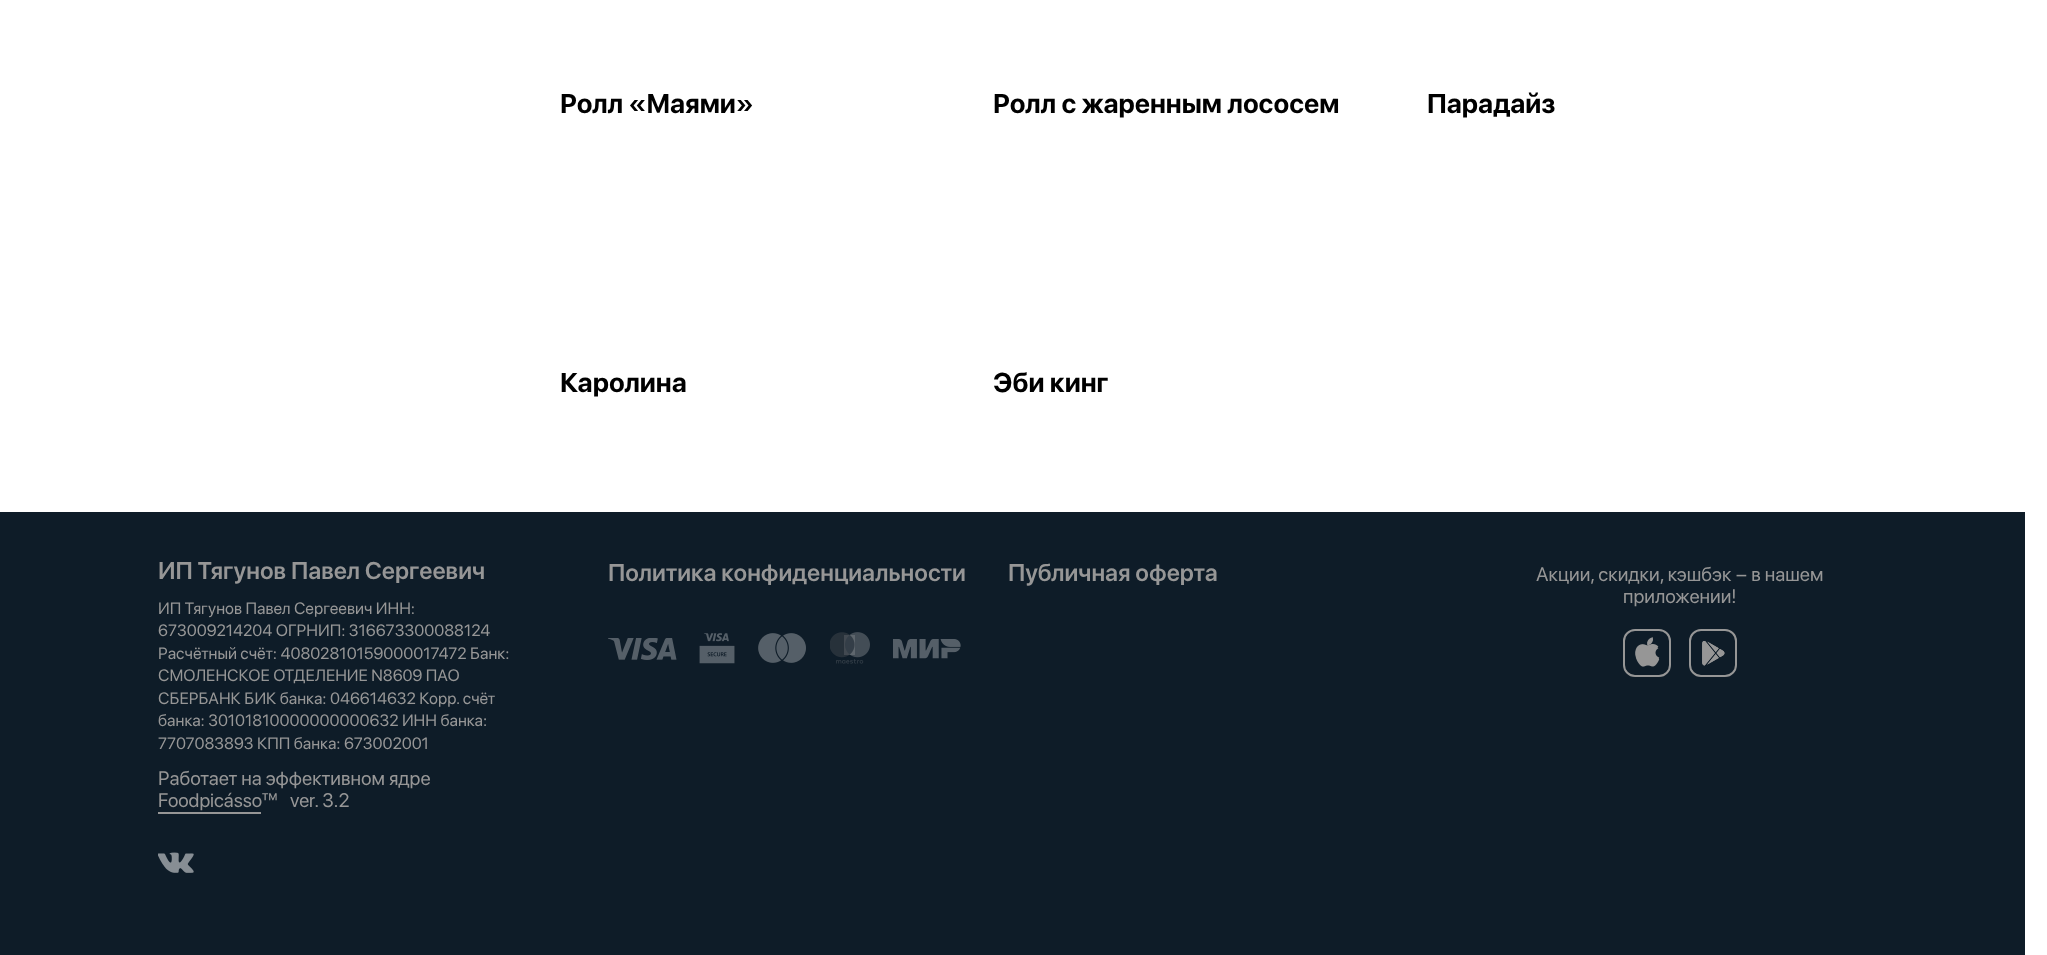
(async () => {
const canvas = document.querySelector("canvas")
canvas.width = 2047
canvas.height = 955
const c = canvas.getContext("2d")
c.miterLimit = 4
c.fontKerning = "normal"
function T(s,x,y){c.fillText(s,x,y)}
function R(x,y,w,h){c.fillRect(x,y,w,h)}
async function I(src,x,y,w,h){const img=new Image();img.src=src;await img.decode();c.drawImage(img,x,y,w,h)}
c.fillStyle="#fff"
R(0,0,2047,955)
c.font="bold 27px SF Pro Display"
c.fillStyle="#000"
T("Ролл «Маями»",560,113)
T("Ролл с жаренным лососем",993,113)
T("Парадайз",1427,113)
T("Каролина",560,392)
T("Эби кинг",993,392)
c.fillStyle="#0e1c28"
R(0,512,2025,443)
c.font="600 24px SF Pro Display"
c.fillStyle="#969696"
T("ИП Тягунов Павел Сергеевич",158,579)
c.font="16.5px SF Pro Display"
T("ИП Тягунов Павел Сергеевич ИНН:",158,614)
T("673009214204 ОГРНИП: 316673300088124",158,636)
T("Расчётный счёт: 40802810159000017472 Банк:",158,659)
T("СМОЛЕНСКОЕ ОТДЕЛЕНИЕ N8609 ПАО",158,681)
T("СБЕРБАНК БИК банка: 046614632 Корр. счёт",158,704)
T("банка: 30101810000000000632 ИНН банка:",158,726)
T("7707083893 КПП банка: 673002001",158,749)
c.font="19.5px SF Pro Display"
T("Работает на эффективном ядре",158,785)
R(158,812,103,2)
T("Foodpicásso™",158,807)
T("ver. 3.2",290,807)
await I("1.png",158,852,36,21)
c.font="600 24px SF Pro Display"
T("Политика конфиденциальности",608,581)
T("Публичная оферта",1008,581)
await I("2.png",608,638,69,22)
await I("3.png",699,633,36,31)
await I("4.png",758,633,48,30)
await I("5.png",830,632,40,32)
await I("6.png",893,639,68,20)
c.font="19.5px SF Pro Display"
T("Акции, скидки, кэшбэк − в нашем",1536,581)
T("приложении!",1623,603)
await I("7.png",1635,637,25,28)
c.beginPath()
c.roundRect(1624,630,46,46,11)
c.strokeStyle="#969696"
c.lineWidth=2
c.stroke()
await I("8.png",1635,639,25,28)
await I("9.png",1702,641,23,25)
c.beginPath()
c.roundRect(1690,630,46,46,11)
c.stroke()
await I("10.png",1702,641,23,25)
})()
